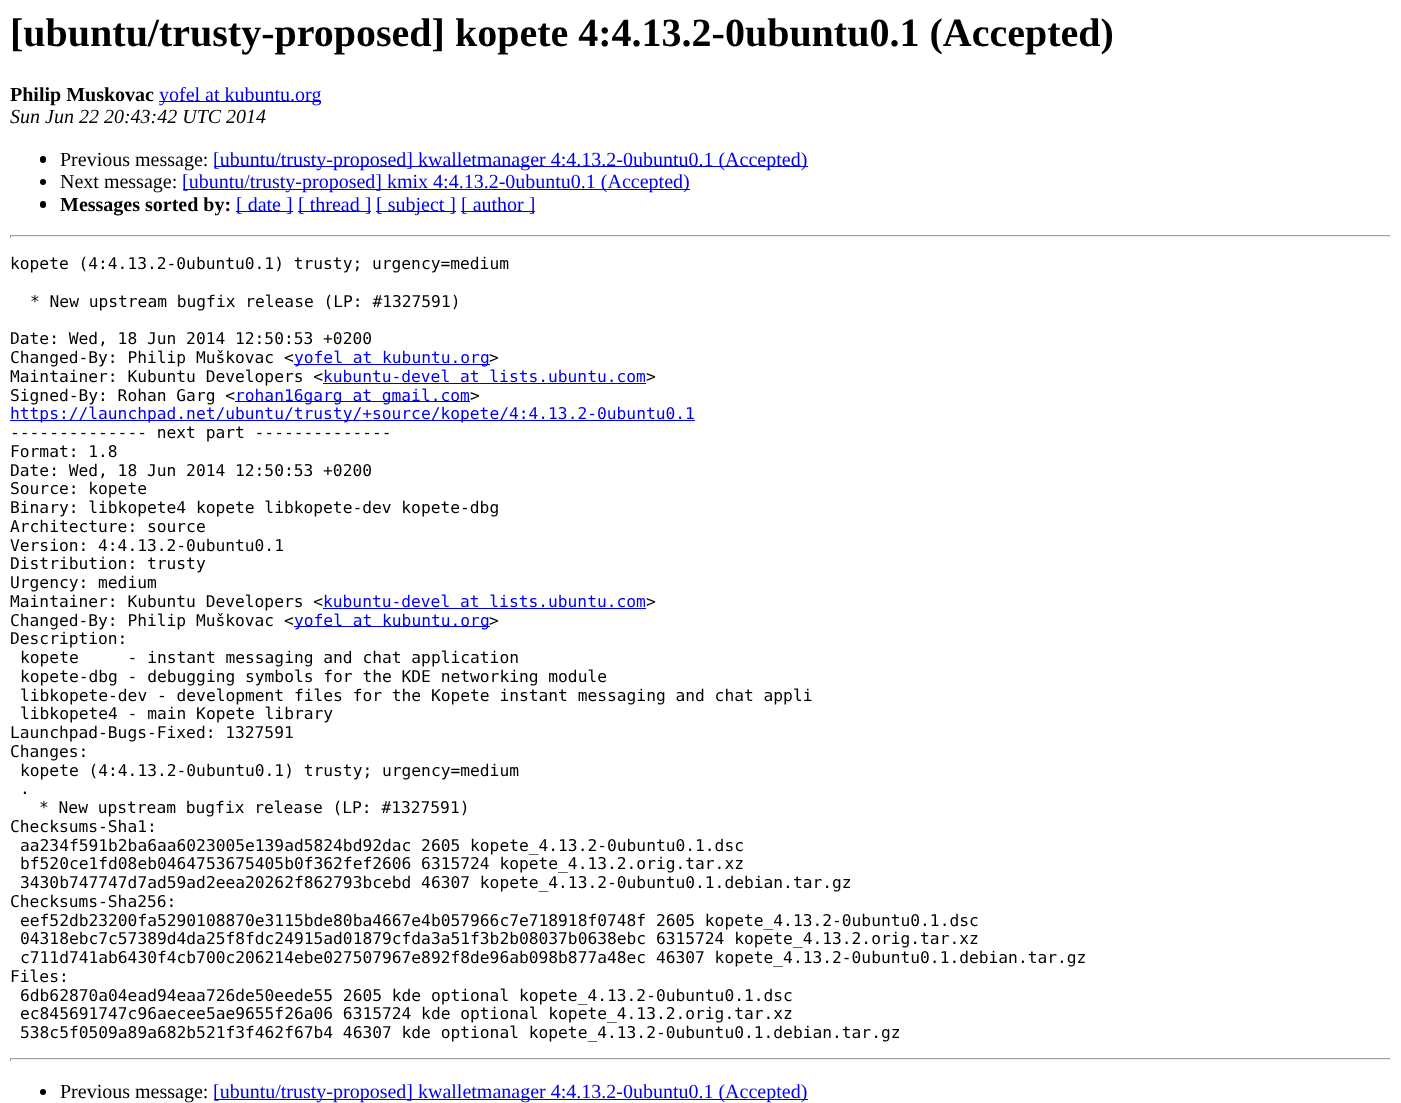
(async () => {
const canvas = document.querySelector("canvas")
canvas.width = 1401
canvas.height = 1103
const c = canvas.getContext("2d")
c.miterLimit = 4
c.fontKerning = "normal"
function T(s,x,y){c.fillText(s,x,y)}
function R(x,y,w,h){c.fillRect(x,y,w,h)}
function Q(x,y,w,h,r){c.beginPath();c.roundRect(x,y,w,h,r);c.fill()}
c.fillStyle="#fff"
R(0,0,1401,1103)
c.font="bold 40px Liberation Serif"
c.fillStyle="#000"
T("[ubuntu/trusty-proposed] kopete 4:4.13.2-0ubuntu0.1 (Accepted)",10,46)
c.font="bold 20px Liberation Serif"
T("Philip Muskovac",10,101)
c.fillStyle="#00e"
R(159,101,162,1)
c.font="20px Liberation Serif"
T("yofel at kubuntu.org",159,101)
c.font="italic 20px Liberation Serif"
c.fillStyle="#000"
T("Sun Jun 22 20:43:42 UTC 2014",10,123)
Q(40,156,6,7,3)
c.font="20px Liberation Serif"
T("Previous message:",60,166)
c.fillStyle="#00e"
R(214,166,594,1)
T("[ubuntu/trusty-proposed] kwalletmanager 4:4.13.2-0ubuntu0.1 (Accepted)",213,166)
c.fillStyle="#000"
c.beginPath()
c.arc(43,182,3,0,7)
c.fill()
T("Next message:",60,188)
c.fillStyle="#00e"
R(183,189,507,1)
T("[ubuntu/trusty-proposed] kmix 4:4.13.2-0ubuntu0.1 (Accepted)",182,188)
c.fillStyle="#000"
Q(40,201,6,7,3)
c.font="bold 20px Liberation Serif"
T("Messages sorted by:",60,211)
c.fillStyle="#00e"
R(236,211,57,1)
c.font="20px Liberation Serif"
T("[ date ]",236,211)
R(298,211,73,1)
T("[ thread ]",298,211)
R(376,211,80,1)
T("[ subject ]",376,211)
R(461,211,74,1)
T("[ author ]",461,211)
c.fillStyle="#9f9f9f"
R(10,235,1381,1)
c.fillStyle="#eee"
R(1390,235,1,3)
R(10,236,1381,1)
c.fillStyle="#9f9f9f"
R(10,235,1,3)
c.font="16.25px DejaVu Sans Mono"
c.fillStyle="#000"
T("kopete (4:4.13.2-0ubuntu0.1) trusty; urgency=medium",10,269)
T("* New upstream bugfix release (LP: #1327591)",30,307)
T("Date: Wed, 18 Jun 2014 12:50:53 +0200",10,344)
T("Changed-By: Philip Muškovac <",10,363)
c.fillStyle="#00e"
R(294,364,196,1)
T("yofel at kubuntu.org",294,363)
c.fillStyle="#000"
T(">",489,363)
T("Maintainer: Kubuntu Developers <",10,382)
c.fillStyle="#00e"
T("kubuntu-devel at lists.ubuntu.com",323,382)
R(323,383,323,1)
c.fillStyle="#000"
T(">",646,382)
T("Signed-By: Rohan Garg <",10,401)
c.fillStyle="#00e"
R(235,401,235,1)
T("rohan16garg at gmail.com",235,401)
c.fillStyle="#000"
T(">",470,401)
c.fillStyle="#00e"
R(10,420,685,1)
T("https://launchpad.net/ubuntu/trusty/+source/kopete/4:4.13.2-0ubuntu0.1",10,419)
c.fillStyle="#000"
T("-------------- next part --------------",10,438)
T("Format: 1.8",10,457)
T("Date: Wed, 18 Jun 2014 12:50:53 +0200",10,476)
T("Source: kopete",10,494)
T("Binary: libkopete4 kopete libkopete-dev kopete-dbg",10,513)
T("Architecture: source",10,532)
T("Version: 4:4.13.2-0ubuntu0.1",10,551)
T("Distribution: trusty",10,569)
T("Urgency: medium",10,588)
T("Maintainer: Kubuntu Developers <",10,607)
c.fillStyle="#00e"
T("kubuntu-devel at lists.ubuntu.com",323,607)
R(323,608,323,1)
c.fillStyle="#000"
T(">",646,607)
T("Changed-By: Philip Muškovac <",10,626)
c.fillStyle="#00e"
R(294,626,196,1)
T("yofel at kubuntu.org",294,626)
c.fillStyle="#000"
T(">",489,626)
T("Description:",10,644)
T("kopete     - instant messaging and chat application",20,663)
T("kopete-dbg - debugging symbols for the KDE networking module",20,682)
T("libkopete-dev - development files for the Kopete instant messaging and chat appli",20,701)
T("libkopete4 - main Kopete library",20,719)
T("Launchpad-Bugs-Fixed: 1327591",10,738)
T("Changes:",10,757)
T("kopete (4:4.13.2-0ubuntu0.1) trusty; urgency=medium",20,776)
T(".",20,794)
T("* New upstream bugfix release (LP: #1327591)",39,813)
T("Checksums-Sha1:",10,832)
T("aa234f591b2ba6aa6023005e139ad5824bd92dac 2605 kopete_4.13.2-0ubuntu0.1.dsc",20,851)
T("bf520ce1fd08eb0464753675405b0f362fef2606 6315724 kopete_4.13.2.orig.tar.xz",20,869)
T("3430b747747d7ad59ad2eea20262f862793bcebd 46307 kopete_4.13.2-0ubuntu0.1.debian.tar.gz",20,888)
T("Checksums-Sha256:",10,907)
T("eef52db23200fa5290108870e3115bde80ba4667e4b057966c7e718918f0748f 2605 kopete_4.13.2-0ubuntu0.1.dsc",20,926)
T("04318ebc7c57389d4da25f8fdc24915ad01879cfda3a51f3b2b08037b0638ebc 6315724 kopete_4.13.2.orig.tar.xz",20,944)
T("c711d741ab6430f4cb700c206214ebe027507967e892f8de96ab098b877a48ec 46307 kopete_4.13.2-0ubuntu0.1.debian.tar.gz",20,963)
T("Files:",10,982)
T("6db62870a04ead94eaa726de50eede55 2605 kde optional kopete_4.13.2-0ubuntu0.1.dsc",20,1001)
T("ec845691747c96aecee5ae9655f26a06 6315724 kde optional kopete_4.13.2.orig.tar.xz",20,1019)
T("538c5f0509a89a682b521f3f462f67b4 46307 kde optional kopete_4.13.2-0ubuntu0.1.debian.tar.gz",20,1038)
c.fillStyle="#9f9f9f"
R(10,1058,1381,1)
c.fillStyle="#eee"
R(1390,1058,1,3)
R(10,1059,1381,1)
c.fillStyle="#9f9f9f"
R(10,1058,1,3)
c.fillStyle="#000"
c.beginPath()
c.arc(43,1092,3,0,7)
c.fill()
c.font="20px Liberation Serif"
T("Previous message:",60,1098)
c.fillStyle="#00e"
R(214,1099,594,1)
T("[ubuntu/trusty-proposed] kwalletmanager 4:4.13.2-0ubuntu0.1 (Accepted)",213,1098)
})()
